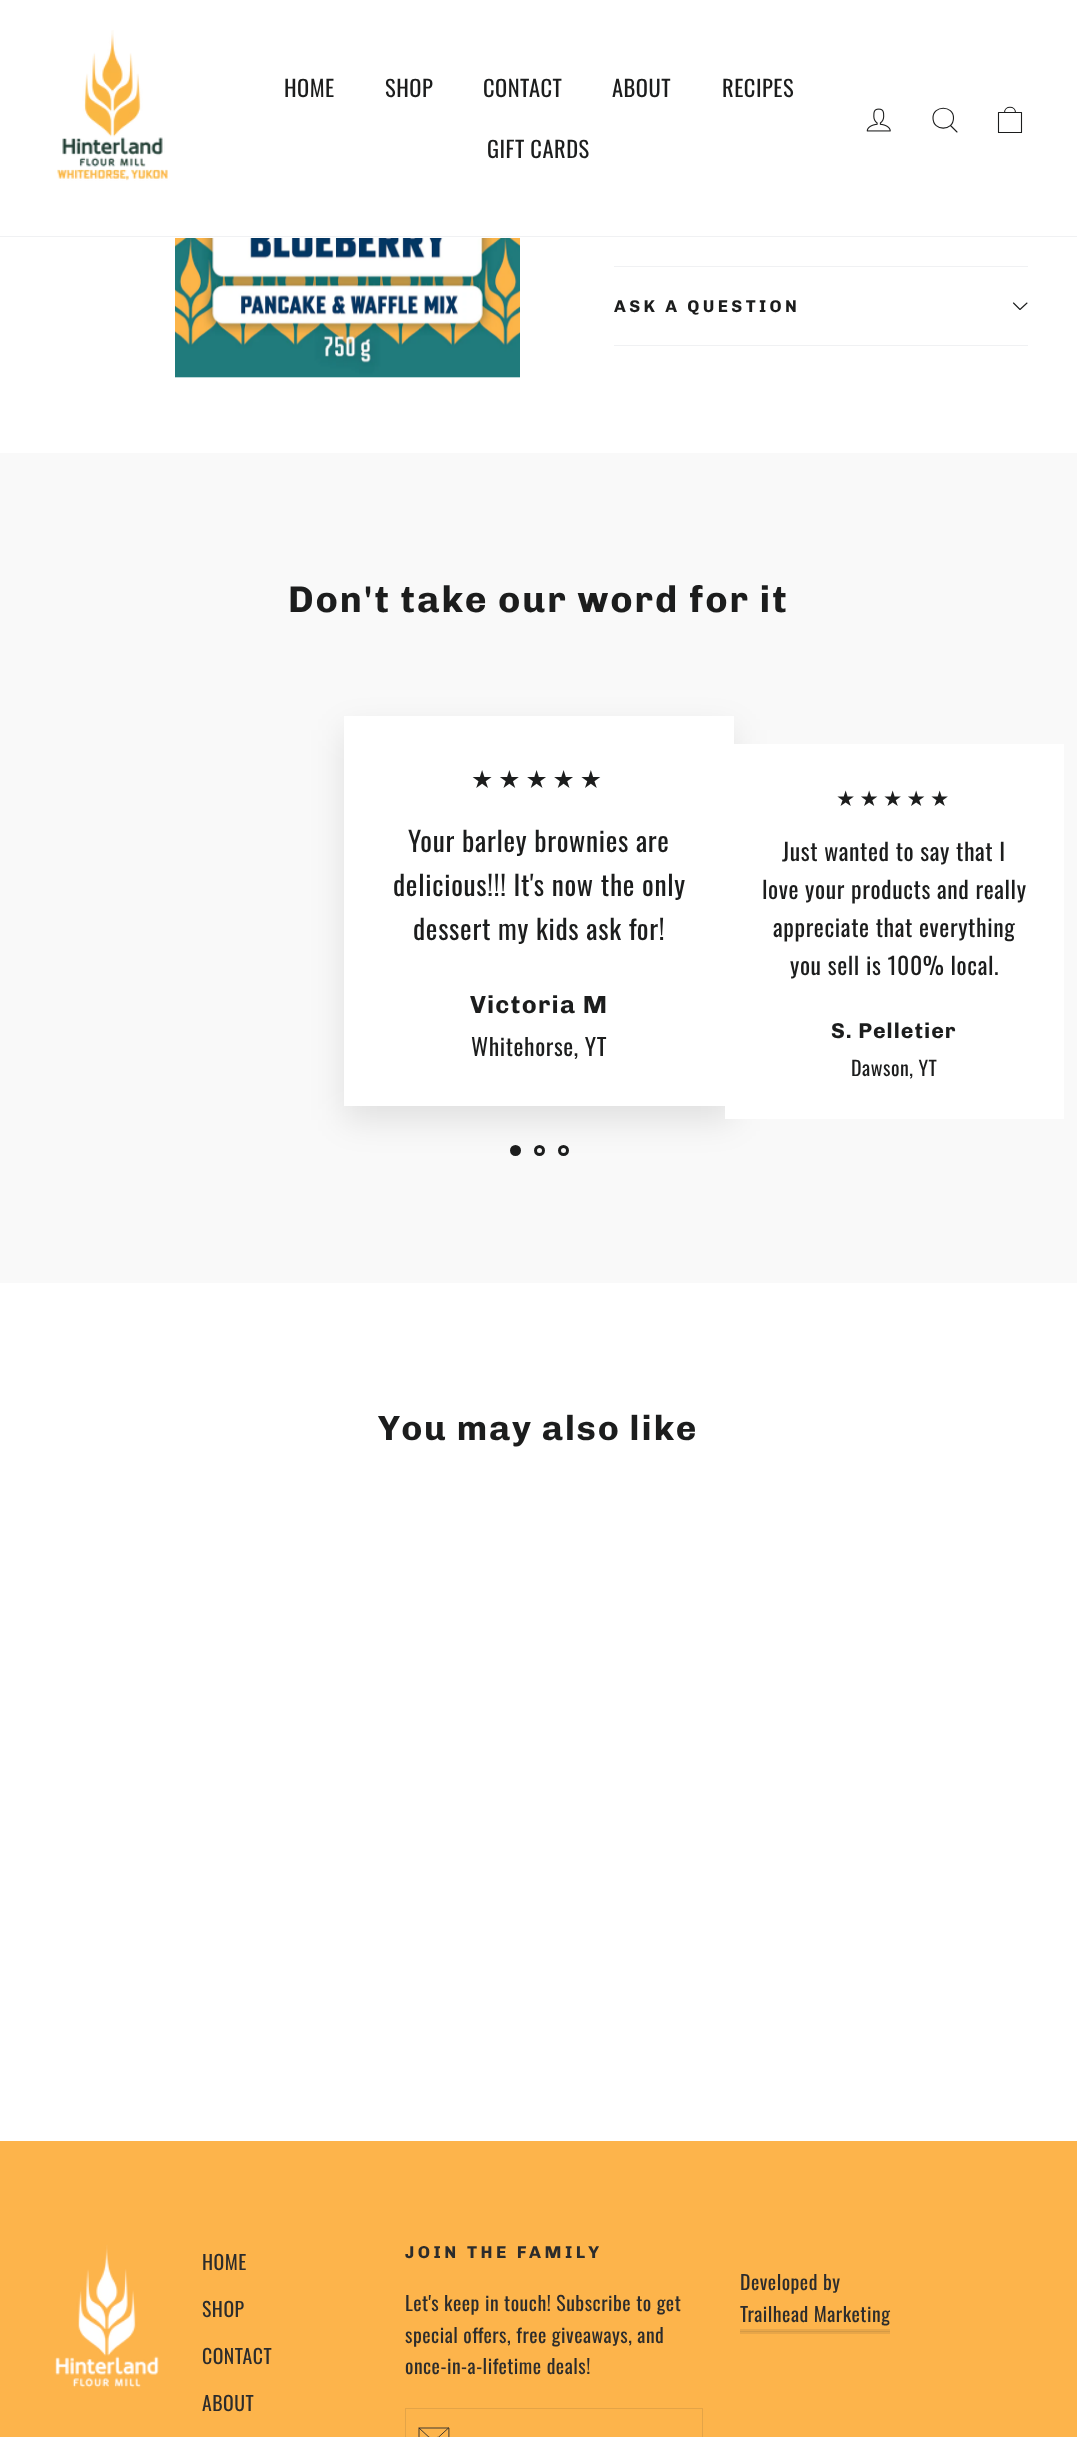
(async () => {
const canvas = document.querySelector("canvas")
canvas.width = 1077
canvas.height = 2437
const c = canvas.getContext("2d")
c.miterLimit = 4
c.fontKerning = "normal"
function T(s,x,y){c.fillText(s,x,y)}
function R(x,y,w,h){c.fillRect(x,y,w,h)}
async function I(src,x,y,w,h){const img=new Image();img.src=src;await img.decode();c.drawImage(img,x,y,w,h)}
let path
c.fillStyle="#fff"
R(0,0,1077,2437)
c.fillStyle="#f0f1f3"
R(0,236,1077,1)
await I("1.png",57,30,111,151)
c.letterSpacing="0.5px"
c.font="22.5px Oswald"
c.fillStyle="#1c1d1d"
T("HOME",284,97)
T("SHOP",385,97)
T("CONTACT",483,97)
T("ABOUT",612,97)
T("RECIPES",722,97)
T("GIFT CARDS",487,158)
await I("2.png",866,108,25,24)
path = new Path2D("M953.5 118c0 13.5-20.5 13.5-20.5 0c0-13 20.5-13 20.5 0zm3.5 14l-6.5-6.5")
c.strokeStyle="#1c1d1d"
c.lineWidth=1.1
c.lineCap="round"
c.lineJoin="round"
c.stroke(path)
path = new Path2D("M998.5 112.5h23v20h-23zm6 0c0-7 11-7 11 0")
c.stroke(path)
await I("3.png",175,238,345,140)
c.fillStyle="#f0f1f3"
R(614,266,414,1)
R(614,345,414,1)
c.letterSpacing="3.4px"
c.font="bold 17px Chivo"
c.fillStyle="#1c1d1d"
T("ASK A QUESTION",614,312)
path = new Path2D("M1013.5 303l6.5 6.5l7-6.5")
c.stroke(path)
c.fillStyle="#f9f9f9"
R(0,453,1077,830)
c.letterSpacing="1.85px"
c.font="bold 37.1px Chivo"
c.fillStyle="#1c1d1d"
T("Don't take our word for it",288,612)
c.fillStyle="#0000001a"
c.filter="blur(17px)"
c.beginPath()
c.rect(344,730,390,390)
c.fill()
c.filter="none"
c.fillStyle="#fff"
R(344,716,390,390)
c.letterSpacing="5px"
c.font="24.75px DejaVu Sans"
c.fillStyle="#1c1d1d"
T("★★★★★",471,788)
c.letterSpacing="0.7px"
c.font="27.5px Oswald"
T("Your barley brownies are",408,852)
T("delicious!!! It's now the only",393,896)
T("dessert my kids ask for!",413,940)
c.letterSpacing="1.25px"
c.font="bold 24.75px Chivo"
T("Victoria M",470,1013)
c.letterSpacing="0.6px"
c.font="23.5px Oswald"
T("Whitehorse, YT",471,1056)
c.fillStyle="#fff"
R(725,744,339,375)
c.letterSpacing="4.25px"
c.font="21.5px DejaVu Sans"
c.fillStyle="#1c1d1d"
T("★★★★★",836,806)
c.letterSpacing="0.6px"
c.font="23.75px Oswald"
T("Just wanted to say that I",782,861)
T("love your products and really",762,899)
T("appreciate that everything",773,937)
T("you sell is 100% local.",790,975)
c.letterSpacing="1px"
c.font="bold 21.5px Chivo"
T("S. Pelletier",831,1038)
c.letterSpacing="0.5px"
c.font="20px Oswald"
T("Dawson, YT",851,1076)
c.beginPath()
c.arc(515.5,1150.5,4,0,7)
c.fill()
c.lineWidth=3
c.stroke()
c.beginPath()
c.arc(539.5,1150.5,4,0,7)
c.stroke()
c.beginPath()
c.arc(563.5,1150.5,4,0,7)
c.stroke()
c.letterSpacing="1.75px"
c.font="bold 35px Chivo"
T("You may also like",378,1440)
c.fillStyle="#fdb44b"
R(0,2141,1077,296)
c.fillStyle="#e8a648"
R(740,2332,150,2)
await I("4.png",55,2245,104,143)
c.letterSpacing="0.5px"
c.font="19.75px Oswald"
c.fillStyle="#2c2c2c"
T("HOME",202,2270)
T("SHOP",202,2317)
T("CONTACT",202,2364)
T("ABOUT",202,2411)
c.letterSpacing="3.5px"
c.font="bold 17.25px Chivo"
T("JOIN THE FAMILY",405,2258)
c.letterSpacing="0.5px"
c.font="19.75px Oswald"
T("Let's keep in touch! Subscribe to get",405,2311)
T("special offers, free giveaways, and",405,2343)
T("once-in-a-lifetime deals!",405,2374)
c.strokeStyle="#e4a447"
c.lineWidth=1
c.lineJoin="miter"
c.strokeRect(405.5,2408.5,297,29)
path = new Path2D("M448.5 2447h-29.5v-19h29.5zm-29.5-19l12.5 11.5h4.5l12.5-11.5m-19.5 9.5l-9.5 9m28.5 .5l-10-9.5")
c.strokeStyle="#2c2c2c"
c.lineWidth=0.9
c.lineJoin="round"
c.stroke(path)
T("Developed by",740,2290)
T("Trailhead Marketing",740,2322)
c.fillStyle="#e8a648"
R(740,2329,150,2)
c.fillStyle="#d59a45"
R(740,2331,150,1)
})()
